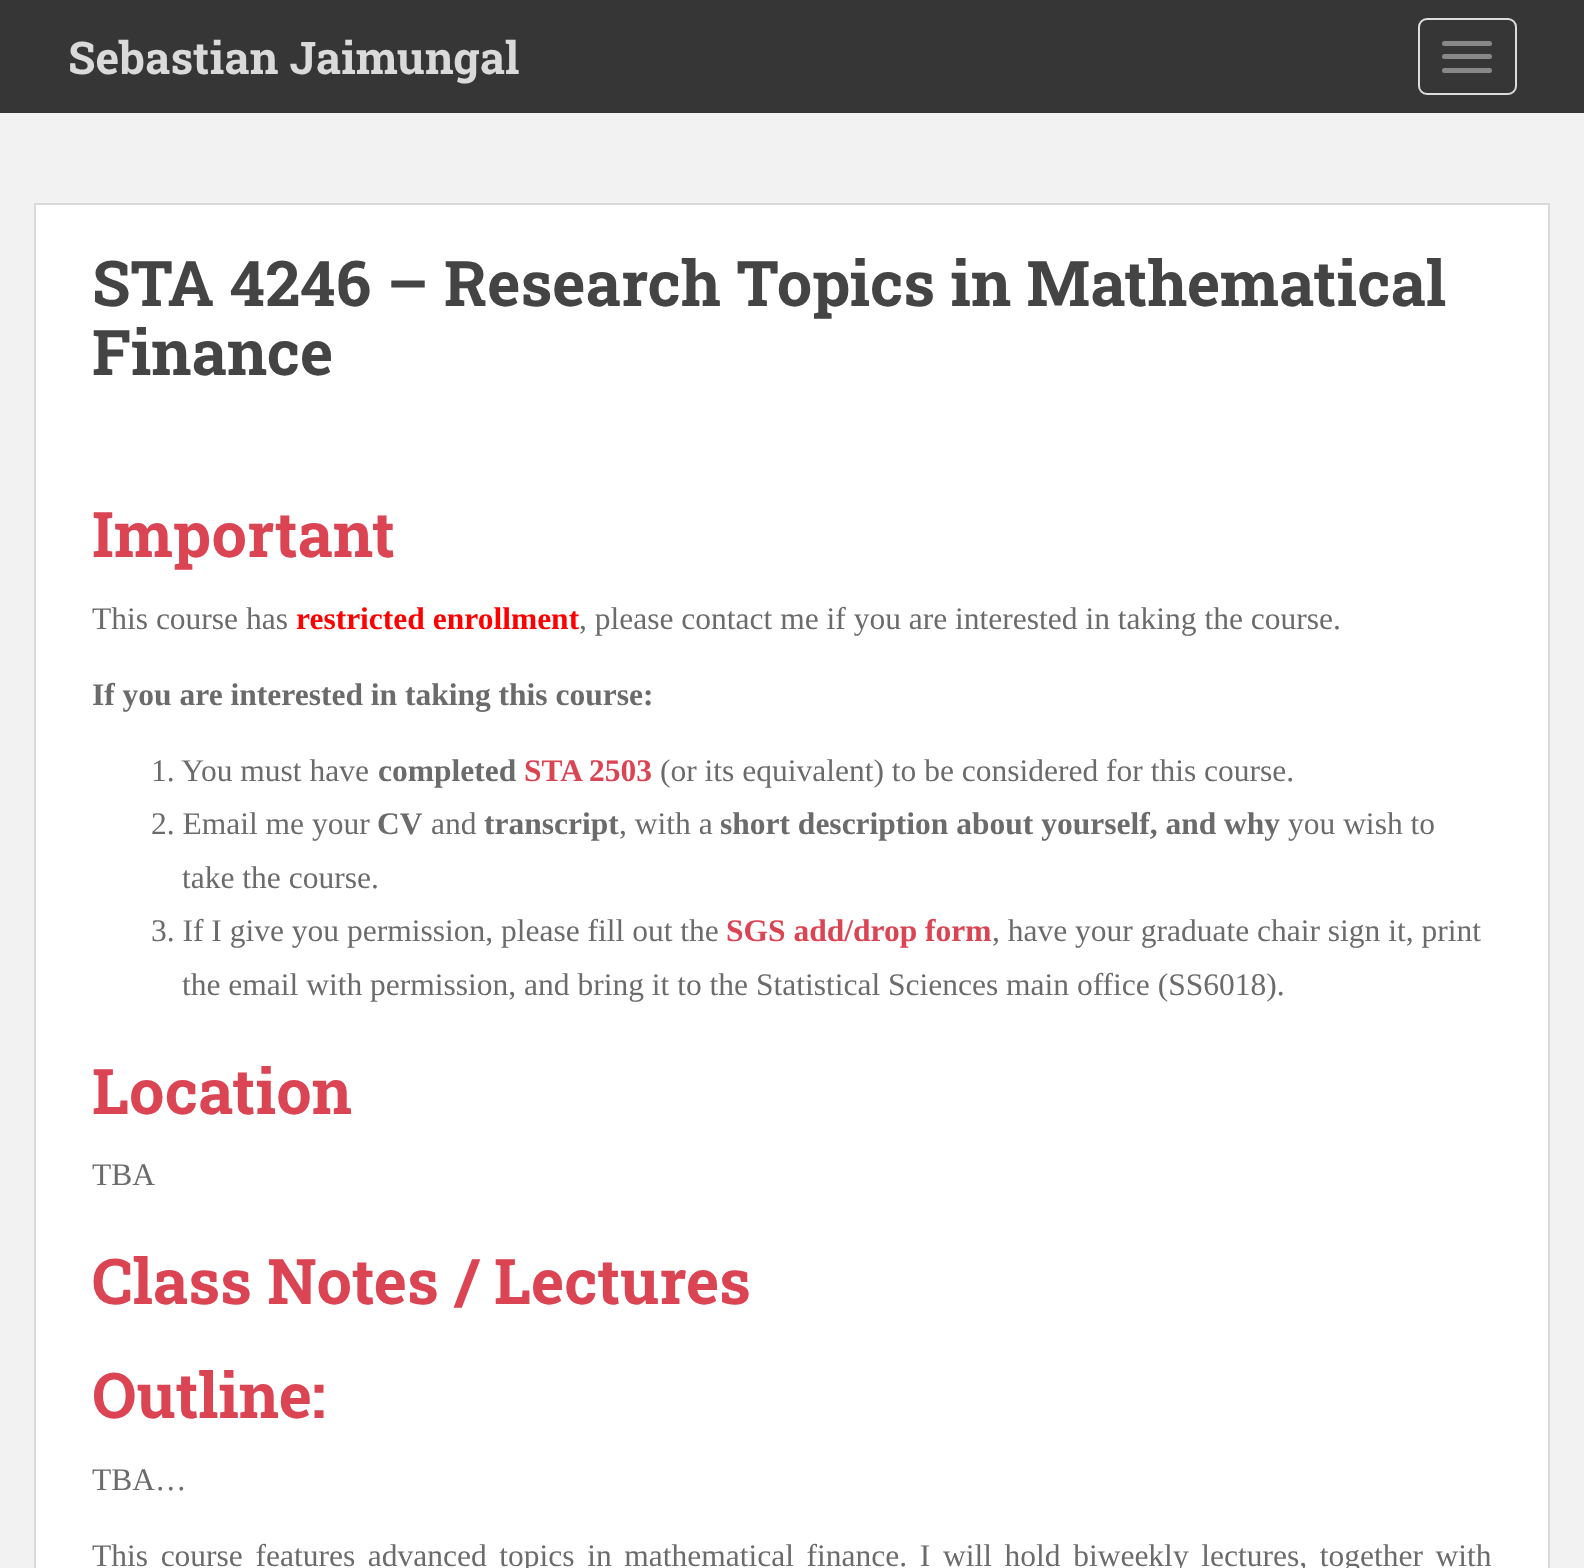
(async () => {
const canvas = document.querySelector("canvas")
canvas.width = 1584
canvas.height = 1568
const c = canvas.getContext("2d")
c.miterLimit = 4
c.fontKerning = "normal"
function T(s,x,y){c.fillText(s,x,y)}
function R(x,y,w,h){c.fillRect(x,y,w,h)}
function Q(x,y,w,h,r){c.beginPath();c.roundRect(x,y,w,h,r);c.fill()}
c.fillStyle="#f2f2f2"
R(0,0,1584,1568)
c.fillStyle="#363636"
R(0,0,1584,113)
c.font="bold 45px Roboto Slab"
c.fillStyle="#dadada"
T("Sebastian Jaimungal",68,74)
c.beginPath()
c.roundRect(1419,19,97,75,8)
c.strokeStyle="#ddd"
c.lineWidth=2
c.stroke()
c.fillStyle="#888"
Q(1442,41,50,5,2.5)
Q(1442,54,50,5,2.5)
Q(1442,68,50,5,2.5)
c.fillStyle="#fff"
c.beginPath()
c.rect(35,204,1514,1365)
c.fill()
c.strokeStyle="#dadada"
c.stroke()
c.font="bold 63px Roboto Slab"
c.fillStyle="#444"
T("STA 4246 – Research Topics in Mathematical",92,306)
T("Finance",92,375)
c.fillStyle="#da4453"
T("Important",92,557)
c.font="31.5px Liberation Serif"
c.fillStyle="#6b6b6b"
T("This course has",92,629)
c.font="bold 31.5px Liberation Serif"
c.fillStyle="#f00"
T("restricted enrollment",296,629)
c.font="31.5px Liberation Serif"
c.fillStyle="#6b6b6b"
T(", please contact me if you are interested in taking the course.",579,629)
c.font="bold 31.5px Liberation Serif"
T("If you are interested in taking this course:",92,705)
c.font="31.5px Liberation Serif"
T("1. You must have",151,781)
c.font="bold 31.5px Liberation Serif"
T("completed",378,781)
c.fillStyle="#da4453"
T("STA 2503",524,781)
c.font="31.5px Liberation Serif"
c.fillStyle="#6b6b6b"
T("(or its equivalent) to be considered for this course.",660,781)
T("2. Email me your",151,834)
c.font="bold 31.5px Liberation Serif"
T("CV",377,834)
c.font="31.5px Liberation Serif"
T("and",431,834)
c.font="bold 31.5px Liberation Serif"
T("transcript",484,834)
c.font="31.5px Liberation Serif"
T(", with a",619,834)
c.font="bold 31.5px Liberation Serif"
T("short description about yourself, and why",720,834)
c.font="31.5px Liberation Serif"
T("you wish to",1288,834)
T("take the course.",182,888)
T("3. If I give you permission, please fill out the",151,941)
c.font="bold 31.5px Liberation Serif"
c.fillStyle="#da4453"
T("SGS add/drop form",726,941)
c.font="31.5px Liberation Serif"
c.fillStyle="#6b6b6b"
T(", have your graduate chair sign it, print",992,941)
T("the email with permission, and bring it to the Statistical Sciences main office (SS6018).",182,995)
c.font="bold 63px Roboto Slab"
c.fillStyle="#da4453"
T("Location",92,1114)
c.font="31.5px Liberation Serif"
c.fillStyle="#6b6b6b"
T("TBA",92,1185)
c.font="bold 63px Roboto Slab"
c.fillStyle="#da4453"
T("Class Notes / Lectures",92,1304)
T("Outline:",92,1418)
c.font="31.5px Liberation Serif"
c.fillStyle="#6b6b6b"
T("TBA…",92,1490)
c.wordSpacing="4.75px"
T("This course features advanced topics in mathematical finance. I will hold biweekly lectures, together with",92,1566)
})()
